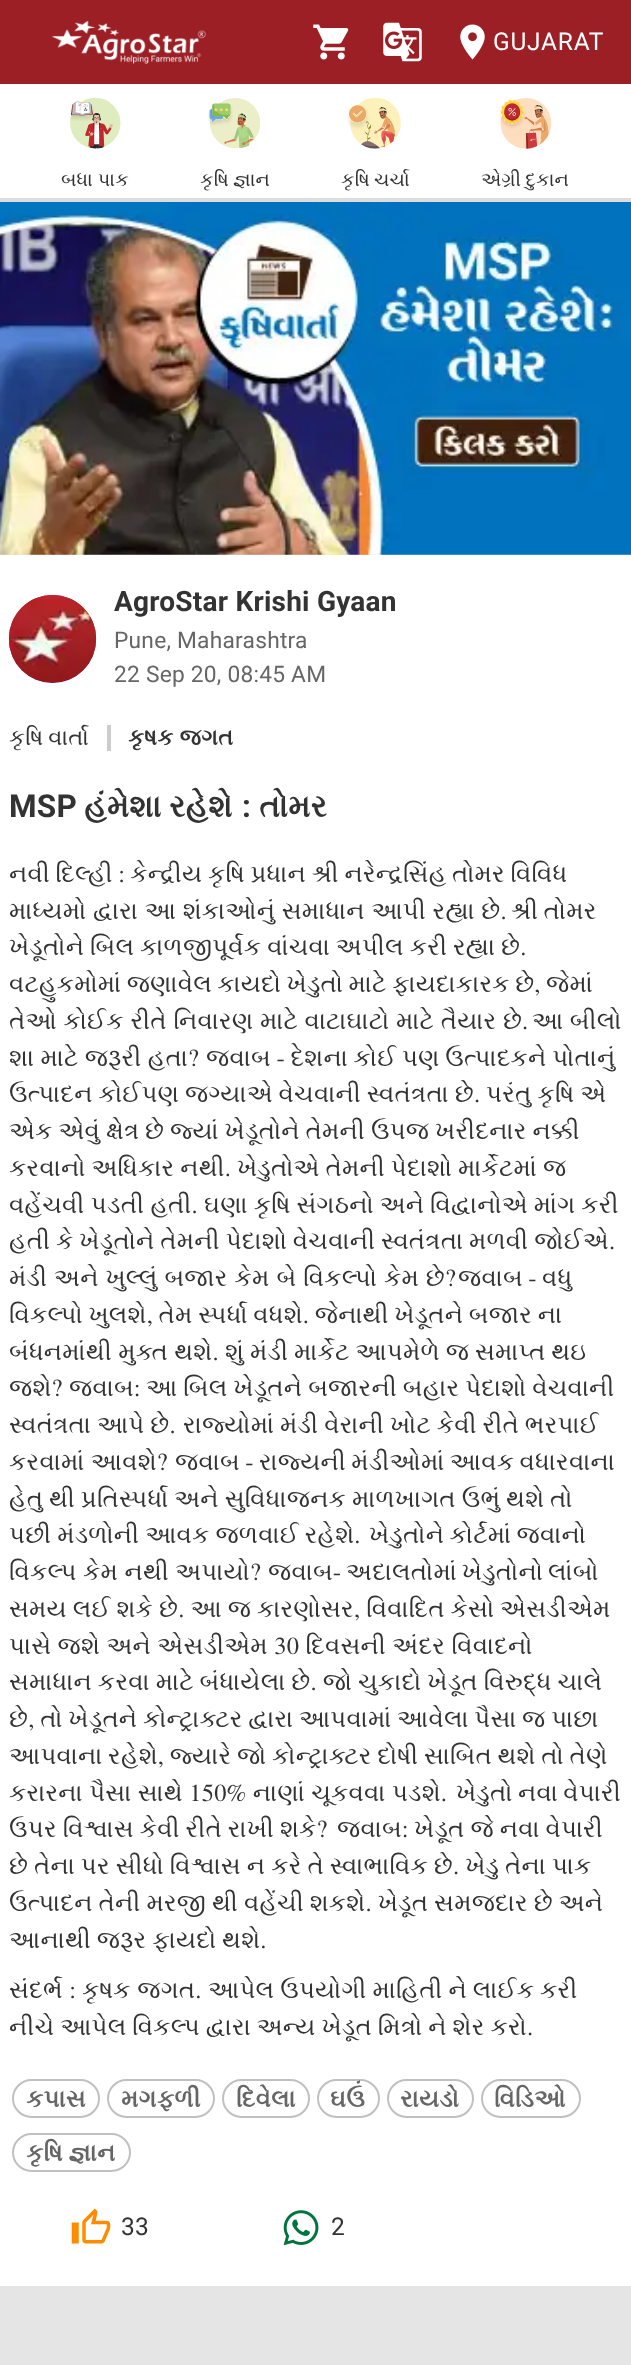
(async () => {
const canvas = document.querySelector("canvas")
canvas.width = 631
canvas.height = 2365
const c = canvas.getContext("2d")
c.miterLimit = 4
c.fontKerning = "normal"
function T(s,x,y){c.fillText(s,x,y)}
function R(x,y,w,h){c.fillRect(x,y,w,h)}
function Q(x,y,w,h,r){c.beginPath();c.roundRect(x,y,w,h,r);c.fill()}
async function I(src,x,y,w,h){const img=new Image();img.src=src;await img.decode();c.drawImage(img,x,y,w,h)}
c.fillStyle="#e5e5e5"
R(0,0,631,2365)
c.fillStyle="#9b1f24"
R(0,0,631,84)
await I("1.png",51,20,155,44)
await I("2.png",313,24,36,36)
await I("3.png",383,22,39,40)
await I("4.png",460,24,25,36)
c.letterSpacing="0.75px"
c.font="24.5px Roboto"
c.fillStyle="#fff"
T("GUJARAT",493,50)
R(0,84,631,114)
c.fillStyle="#ddd"
R(0,198,631,4)
await I("5.png",69,97,52,52)
c.letterSpacing="0.1px"
c.font="19.25px FreeSerif"
c.fillStyle="#333"
T("બધા પાક",61,186)
await I("6.png",208,98,53,51)
c.wordSpacing="-0.75px"
T("કૃષિ જ્ઞાન",200,186)
await I("7.png",347,97,54,52)
T("કૃષિ ચર્ચા",341,186)
await I("8.png",499,98,53,51)
T("એગ્રી દુકાન",481,186)
await I("9.png",0,202,631,353)
c.fillStyle="#fff"
R(0,555,631,1731)
c.fillStyle="#880e4f"
Q(9,595,87,88,43.5)
await I("10.png",8,595,89,88)
c.letterSpacing="0.23px"
c.wordSpacing="0px"
c.font="bold 28px Roboto"
c.fillStyle="#333"
T("AgroStar Krishi Gyaan",114,611)
c.font="22.75px Roboto"
c.fillStyle="#666"
T("Pune, Maharashtra",114,648)
T("22 Sep 20, 08:45 AM",114,682)
c.wordSpacing="-1px"
c.font="22.75px FreeSerif"
c.fillStyle="#333"
T("કૃષિ વાર્તા",9,745)
c.fillStyle="#ccc"
R(107,725,4,26)
c.wordSpacing="0px"
c.font="bold 22.75px FreeSerif"
c.fillStyle="#333"
T("કૃષક જગત",128,745)
c.font="bold 31.5px Roboto"
T("MSP",9,817)
c.wordSpacing="-0.5px"
c.font="bold 31.5px FreeSerif"
T("હંમેશા રહેશે",84,817)
c.wordSpacing="0px"
c.font="bold 31.5px Roboto"
T(":",242,817)
c.font="bold 31.5px FreeSerif"
T("તોમર",259,817)
c.wordSpacing="-0.75px"
c.font="24.5px FreeSerif"
T("નવી દિલ્હી : કેન્દ્રીય કૃષિ પ્રધાન શ્રી નરેન્દ્રસિંહ તોમર વિવિધ",9,882)
c.wordSpacing="0.25px"
T("માધ્યમો દ્વારા આ શંકાઓનું સમાધાન આપી રહ્યા છે.",9,919)
c.wordSpacing="-1px"
T("શ્રી તોમર",511,919)
c.save()
c.beginPath()
c.rect(9,856,614,1102)
c.clip()
c.wordSpacing="-0.5px"
T("ખેડૂતોને બિલ કાળજીપૂર્વક વાંચવા અપીલ કરી રહ્યા છે.",9,955)
c.restore()
T("વટહુકમોમાં જણાવેલ કાયદો ખેડુતો માટે ફાયદાકારક છે, જેમાં",9,992)
c.save()
c.beginPath()
c.rect(9,856,614,1102)
c.clip()
c.wordSpacing="0.25px"
T("તેઓ કોઈક રીતે નિવારણ માટે વાટાઘાટો માટે તૈયાર છે.",9,1029)
c.restore()
c.wordSpacing="0px"
T("આ બીલો",532,1029)
T("શા માટે જરૂરી હતા?",9,1066)
c.wordSpacing="-0.75px"
T("જવાબ - દેશના કોઈ પણ ઉત્પાદકને પોતાનું",206,1066)
c.wordSpacing="-0.5px"
T("ઉત્પાદન કોઈપણ જગ્યાએ વેચવાની સ્વતંત્રતા છે. પરંતુ કૃષિ એ",9,1102)
T("એક એવું ક્ષેત્ર છે જ્યાં ખેડૂતોને તેમની ઉપજ ખરીદનાર નક્કી",9,1139)
T("કરવાનો અધિકાર નથી. ખેડુતોએ તેમની પેદાશો માર્કેટમાં જ",9,1176)
c.wordSpacing="0px"
T("વહેંચવી પડતી હતી.",9,1213)
c.wordSpacing="-0.5px"
T("ઘણા કૃષિ સંગઠનો અને વિદ્વાનોએ માંગ કરી",204,1213)
T("હતી કે ખેડૂતોને તેમની પેદાશો વેચવાની સ્વતંત્રતા મળવી જોઈએ.",9,1249)
c.save()
c.beginPath()
c.rect(9,856,614,1102)
c.clip()
c.wordSpacing="0.5px"
T("મંડી અને ખુલ્લું બજાર કેમ બે વિકલ્પો કેમ છે?",9,1286)
c.restore()
c.wordSpacing="-1px"
T("જવાબ - વધુ",458,1286)
c.wordSpacing="-0.75px"
T("વિકલ્પો ખુલશે, તેમ સ્પર્ધા વધશે. જેનાથી ખેડૂતને બજાર ના",9,1323)
c.save()
c.beginPath()
c.rect(9,856,614,1102)
c.clip()
c.wordSpacing="0px"
T("બંધનમાંથી મુક્ત થશે.",9,1360)
c.restore()
c.wordSpacing="-0.5px"
T("શું મંડી માર્કેટ આપમેળે જ સમાપ્ત થઇ",225,1360)
c.wordSpacing="0px"
T("જશે?",9,1396)
c.wordSpacing="-0.5px"
T("જવાબ: આ બિલ ખેડૂતને બજારની બહાર પેદાશો વેચવાની",69,1396)
T("સ્વતંત્રતા આપે છે.",9,1433)
T("રાજ્યોમાં મંડી વેરાની ખોટ કેવી રીતે ભરપાઈ",183,1433)
c.wordSpacing="0px"
T("કરવામાં આવશે?",9,1470)
c.wordSpacing="-1px"
T("જવાબ - રાજ્યની મંડીઓમાં આવક વધારવાના",175,1470)
c.save()
c.beginPath()
c.rect(9,856,614,1102)
c.clip()
c.wordSpacing="-0.5px"
T("હેતુ થી પ્રતિસ્પર્ધા અને સુવિધાજનક માળખાગત ઉભું થશે તો",9,1507)
c.restore()
c.wordSpacing="-0.5px"
T("પછી મંડળોની આવક જળવાઈ રહેશે.",9,1543)
c.wordSpacing="-1px"
T("ખેડુતોને કોર્ટમાં જવાનો",369,1543)
c.wordSpacing="0px"
T("વિકલ્પ કેમ નથી અપાયો?",9,1580)
c.wordSpacing="-1.5px"
T("જવાબ- અદાલતોમાં ખેડુતોનો લાંબો",268,1580)
c.wordSpacing="-0.5px"
T("સમય લઈ શકે છે. આ જ કારણોસર, વિવાદિત કેસો એસડીએમ",9,1617)
c.wordSpacing="0px"
T("પાસે જશે અને એસડીએમ 30 દિવસની અંદર વિવાદનો",9,1654)
c.wordSpacing="-0.5px"
T("સમાધાન કરવા માટે બંધાયેલા છે. જો ચુકાદો ખેડૂત વિરુદ્ધ ચાલે",9,1690)
c.save()
c.beginPath()
c.rect(9,856,614,1102)
c.clip()
c.wordSpacing="-0.75px"
T("છે, તો ખેડૂતને કોન્ટ્રાક્ટર દ્વારા આપવામાં આવેલા પૈસા જ પાછા",9,1727)
c.restore()
c.wordSpacing="-0.75px"
T("આપવાના રહેશે, જ્યારે જો કોન્ટ્રાક્ટર દોષી સાબિત થશે તો તેણે",9,1764)
c.wordSpacing="0px"
T("કરારના પૈસા સાથે 150% નાણાં ચૂકવવા પડશે.",9,1801)
c.wordSpacing="-1px"
T("ખેડુતો નવા વેપારી",456,1801)
c.wordSpacing="-0.5px"
T("ઉપર વિશ્વાસ કેવી રીતે રાખી શકે?",9,1837)
T("જવાબ: ખેડૂત જે નવા વેપારી",337,1837)
c.save()
c.beginPath()
c.rect(9,856,614,1102)
c.clip()
T("છે તેના પર સીધો વિશ્વાસ ન કરે તે સ્વાભાવિક છે. ખેડુ તેના પાક",9,1874)
c.restore()
T("ઉત્પાદન તેની મરજી થી વહેંચી શકશે. ખેડૂત સમજદાર છે અને",9,1911)
T("આનાથી જરૂર ફાયદો થશે.",9,1948)
c.save()
c.beginPath()
c.rect(9,1972,614,74)
c.clip()
c.wordSpacing="0px"
T("સંદર્ભ : કૃષક જગત.",9,1998)
c.restore()
T("આપેલ ઉપયોગી માહિતી ને લાઈક કરી",208,1998)
c.save()
c.beginPath()
c.rect(9,1972,614,74)
c.clip()
T("નીચે આપેલ વિકલ્પ દ્વારા અન્ય ખેડૂત મિત્રો ને શેર કરો.",9,2035)
c.restore()
c.beginPath()
c.roundRect(13,2080,86,37,18.5)
c.strokeStyle="#c0c0c0"
c.lineWidth=2
c.stroke()
c.wordSpacing="0px"
c.font="bold 24.5px FreeSerif"
c.fillStyle="#666"
T("કપાસ",26,2107)
c.beginPath()
c.roundRect(108,2080,106,37,18.5)
c.stroke()
T("મગફળી",121,2107)
c.beginPath()
c.roundRect(223,2080,86,37,18.5)
c.stroke()
T("દિવેલા",236,2107)
c.beginPath()
c.roundRect(318,2080,61,37,18.5)
c.stroke()
T("ઘઉં",330,2107)
c.beginPath()
c.roundRect(388,2080,85,37,18.5)
c.stroke()
T("રાયડો",400,2107)
c.beginPath()
c.roundRect(482,2080,98,37,18.5)
c.stroke()
T("વિડિઓ",494,2107)
c.beginPath()
c.roundRect(13,2134,117,37,18.5)
c.stroke()
c.wordSpacing="-1px"
T("કૃષિ જ્ઞાન",26,2161)
await I("11.png",71,2208,40,36)
c.wordSpacing="0px"
c.font="24.5px Roboto"
c.fillStyle="#333"
T("33",121,2235)
await I("12.png",283,2210,36,36)
T("2",331,2235)
})()
